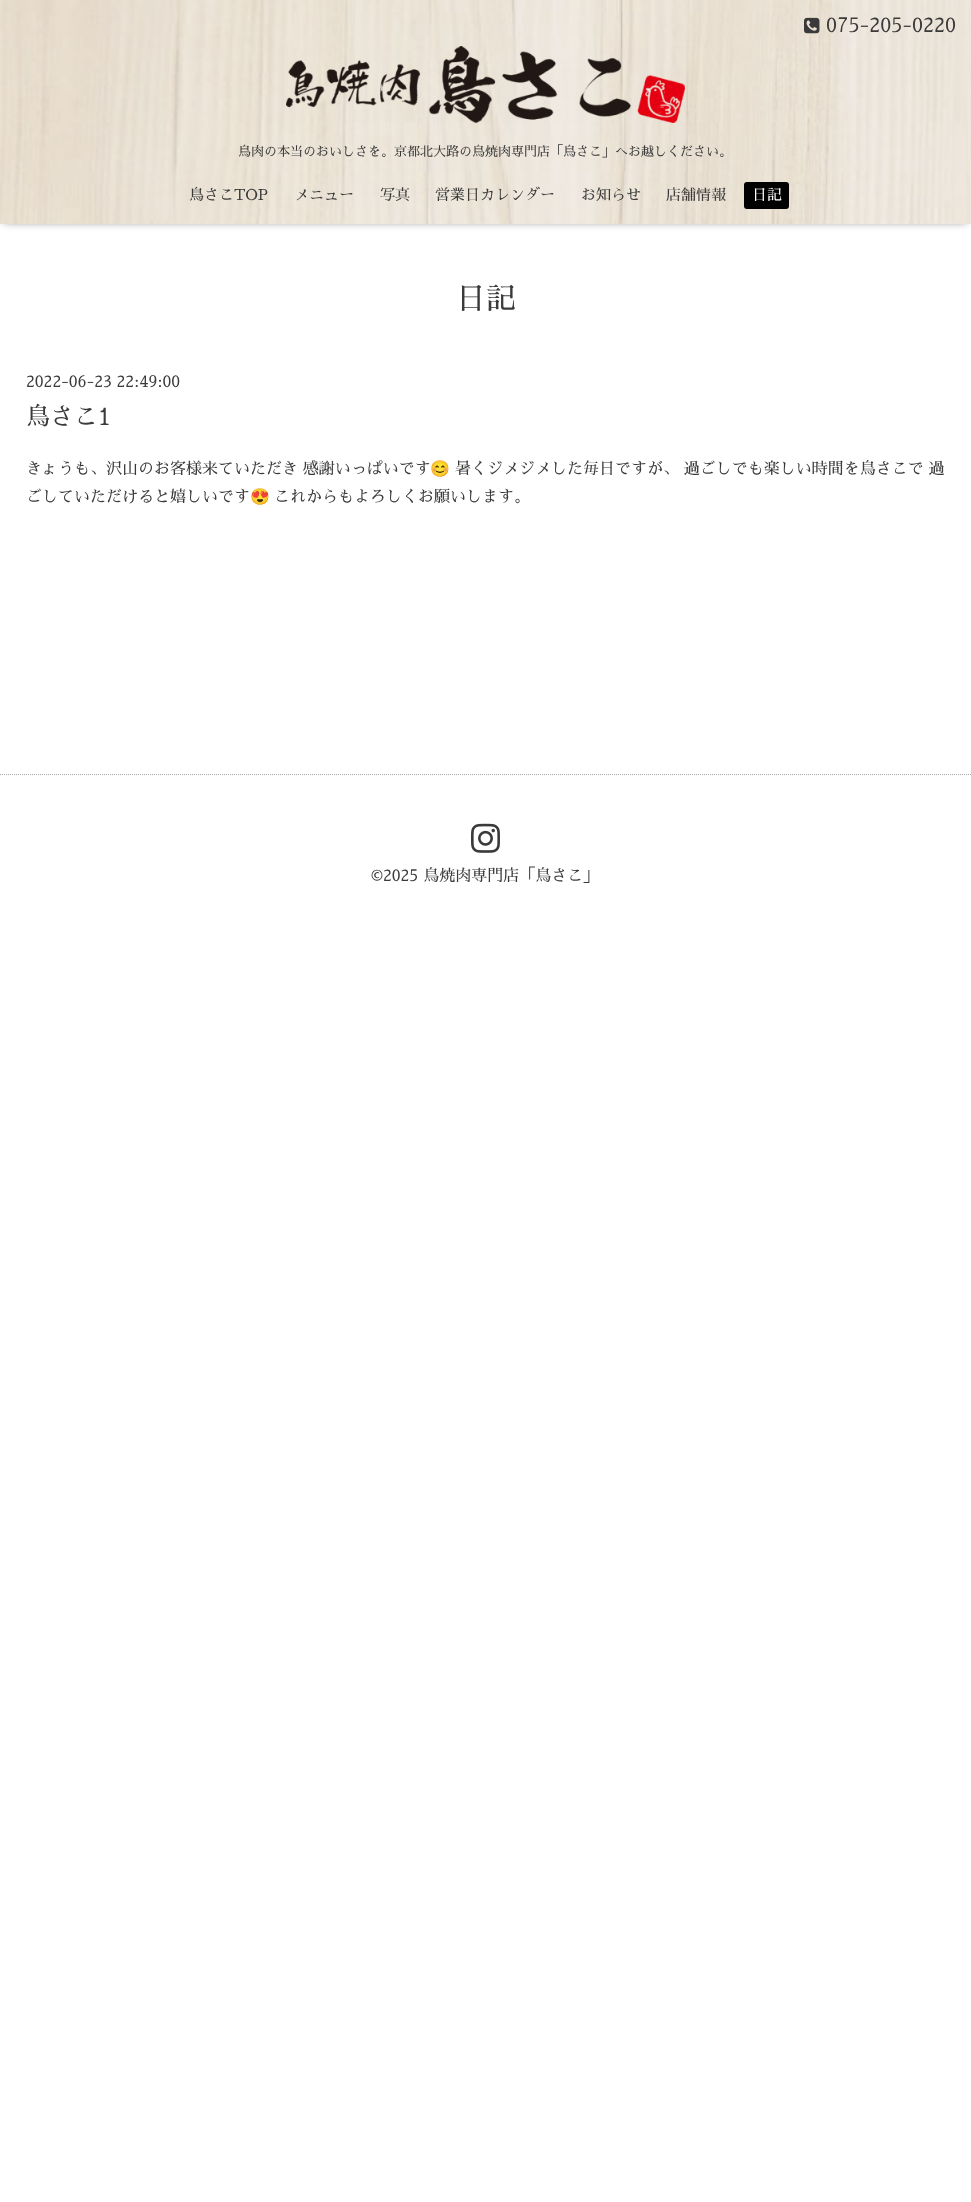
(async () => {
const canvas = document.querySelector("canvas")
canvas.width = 971
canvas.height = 2202
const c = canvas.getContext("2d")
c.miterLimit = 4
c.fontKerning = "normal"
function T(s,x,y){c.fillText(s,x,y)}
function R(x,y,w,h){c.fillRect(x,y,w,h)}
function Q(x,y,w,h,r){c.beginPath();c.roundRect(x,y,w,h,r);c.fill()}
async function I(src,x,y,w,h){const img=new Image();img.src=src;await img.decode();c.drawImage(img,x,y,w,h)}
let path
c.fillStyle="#fff"
R(0,0,971,2202)
c.fillStyle="#00000099"
c.filter="blur(5px)"
c.beginPath()
c.rect(4,5,963,216)
c.fill()
c.filter="none"
await I("1.png",0,0,971,224)
await I("2.png",804,17,16,17)
c.font="20px Sawarabi Mincho"
c.fillStyle="#3a3a3a"
T("075-205-0220",826,32)
await I("3.png",286,46,399,77)
c.font="13px Sawarabi Mincho"
T("鳥肉の本当のおいしさを。京都北大路の鳥焼肉専門店「鳥さこ」へお越しください。",238,156)
c.font="15px Sawarabi Mincho"
T("鳥さこTOP",189,200)
T("メニュー",294,200)
T("写真",380,200)
T("営業日カレンダー",435,200)
T("お知らせ",581,200)
T("店舗情報",666,200)
c.fillStyle="#000"
Q(744,182,45,27,3)
c.fillStyle="#fff"
T("日記",752,200)
c.font="30px Sawarabi Mincho"
c.fillStyle="#3a3a3a"
T("日記",456,309)
c.font="16px Sawarabi Mincho"
T("2022-06-23 22:49:00",26,387)
c.font="24px Sawarabi Mincho"
T("鳥さこ1",26,425)
c.font="16px Sawarabi Mincho"
T("きょうも、沢山のお客様来ていただき 感謝いっぱいです",26,474)
c.font="16px Noto Color Emoji"
T("😊",430,474)
c.font="16px Sawarabi Mincho"
T("暑くジメジメした毎日ですが、 過ごしでも楽しい時間を鳥さこで 過",455,474)
T("ごしていただけると嬉しいです",26,502)
c.font="16px Noto Color Emoji"
T("😍",250,502)
c.font="16px Sawarabi Mincho"
T("これからもよろしくお願いします。",274,502)
path = new Path2D("M0 774.5h971")
c.strokeStyle="#a9a9a9"
c.setLineDash([1,1])
c.stroke(path)
await I("4.png",471,823,29,30)
T("©2025 鳥焼肉専門店「鳥さこ」",371,881)
})()
